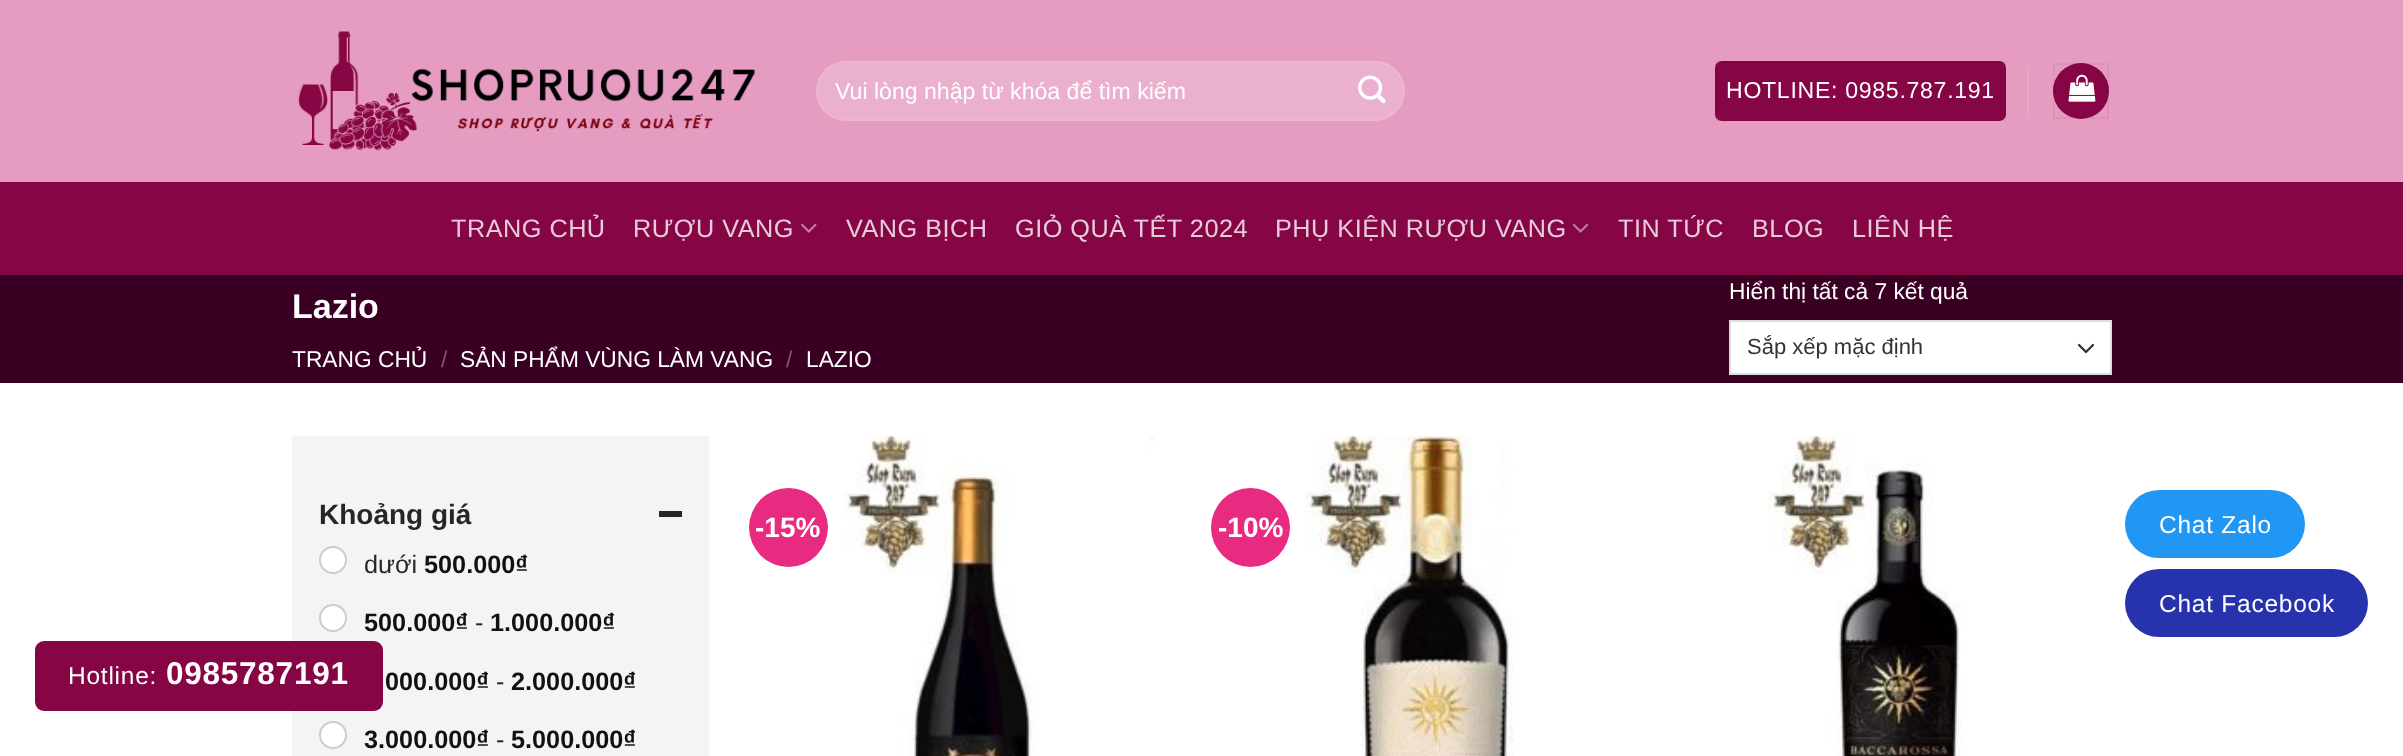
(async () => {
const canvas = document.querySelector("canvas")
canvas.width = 2403
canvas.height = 756
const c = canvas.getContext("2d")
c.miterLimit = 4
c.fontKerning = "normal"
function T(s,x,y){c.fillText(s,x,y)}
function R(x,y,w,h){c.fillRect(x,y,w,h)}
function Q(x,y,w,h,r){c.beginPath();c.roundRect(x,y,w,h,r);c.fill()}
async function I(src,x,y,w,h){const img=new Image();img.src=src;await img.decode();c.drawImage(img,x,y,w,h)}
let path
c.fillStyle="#fff"
R(0,0,2403,756)
c.fillStyle="#e59cc0"
R(0,0,2403,182)
await I("1.png",298,31,457,120)
c.fillStyle="#eab0cd"
Q(816,61,589,60,30)
c.beginPath()
c.roundRect(817,62,587,58,29)
c.strokeStyle="#ffffff17"
c.lineWidth=2
c.stroke()
c.font="23.1px Liberation Sans"
c.fillStyle="#fff"
T("Vui lòng nhập từ khóa để tìm kiếm",835,99)
await I("2.png",1358,75,28,29)
c.fillStyle="#860544"
Q(1715,61,291,60,7)
c.strokeStyle="#0000000d"
c.strokeRect(1716,62,289,58)
c.letterSpacing="0.7px"
c.fillStyle="#fff"
T("HOTLINE: 0985.787.191",1726,98)
c.fillStyle="#e8a6c6"
R(2027,65,2,52)
c.fillStyle="#860544"
c.beginPath()
c.arc(2081,91,28,0,7)
c.fill()
c.strokeRect(2054,64,54,54)
await I("3.png",2068,74,28,28)
R(0,182,2403,93)
c.letterSpacing="0.5px"
c.font="25.25px Liberation Sans"
c.fillStyle="#e7cdda"
T("TRANG CHỦ",451,237)
T("RƯỢU VANG",633,237)
await I("4.png",801,223,16,10)
T("VANG BỊCH",846,237)
T("GIỎ QUÀ TẾT 2024",1015,237)
T("PHỤ KIỆN RƯỢU VANG",1275,237)
await I("5.png",1572,223,17,10)
T("TIN TỨC",1618,237)
T("BLOG",1752,237)
T("LIÊN HỆ",1852,237)
c.fillStyle="#390023"
R(0,275,2403,108)
c.letterSpacing="0px"
c.font="bold 34px Liberation Sans"
c.fillStyle="#fff"
T("Lazio",292,318)
c.font="22.75px Liberation Sans"
T("TRANG CHỦ",292,367)
c.fillStyle="#7e5970"
T("/",441,367)
c.fillStyle="#fff"
T("SẢN PHẨM VÙNG LÀM VANG",460,367)
c.fillStyle="#7e5970"
T("/",786,367)
c.fillStyle="#fff"
T("LAZIO",806,367)
T("Hiển thị tất cả 7 kết quả",1729,299)
R(1731,322,379,51)
path = new Path2D("M2079 345l7 7l7-7")
c.strokeStyle="#333"
c.lineWidth=2.3
c.lineCap="round"
c.lineJoin="round"
c.stroke(path)
c.strokeStyle="#ddd"
c.lineWidth=2
c.lineJoin="miter"
c.strokeRect(1730,321,381,53)
c.font="22px Liberation Sans"
c.fillStyle="#333"
T("Sắp xếp mặc định",1747,354)
c.fillStyle="#f4f4f4"
R(292,436,417,320)
c.font="bold 28px Liberation Sans"
c.fillStyle="#262626"
T("Khoảng giá",319,524)
R(659,511,23,6)
c.fillStyle="#fff"
c.beginPath()
c.arc(333,560,13,0,7)
c.fill()
c.strokeStyle="#ccc"
c.stroke()
c.font="25.25px Liberation Sans"
c.fillStyle="#262626"
T("dưới",364,573)
c.font="bold 25.25px Liberation Sans"
c.fillStyle="#111"
T("500.000₫",424,573)
c.fillStyle="#fff"
c.beginPath()
c.arc(333,618,13,0,7)
c.fill()
c.stroke()
c.fillStyle="#111"
T("500.000₫",364,631)
c.font="25.25px Liberation Sans"
c.fillStyle="#262626"
T("-",475,631)
c.font="bold 25.25px Liberation Sans"
c.fillStyle="#111"
T("1.000.000₫",490,631)
T("000.000₫",385,690)
c.font="25.25px Liberation Sans"
c.fillStyle="#262626"
T("-",496,690)
c.font="bold 25.25px Liberation Sans"
c.fillStyle="#111"
T("2.000.000₫",511,690)
c.fillStyle="#fff"
c.beginPath()
c.arc(333,735,13,0,7)
c.fill()
c.stroke()
c.fillStyle="#111"
T("3.000.000₫",364,748)
c.font="25.25px Liberation Sans"
c.fillStyle="#262626"
T("-",496,748)
c.font="bold 25.25px Liberation Sans"
c.fillStyle="#111"
T("5.000.000₫",511,748)
c.fillStyle="#e82a80"
c.beginPath()
c.arc(788.5,527.5,39.5,0,7)
c.fill()
c.font="bold 28px Liberation Sans"
c.fillStyle="#fff"
T("-15%",755,537)
await I("6.png",843,435,312,321)
c.fillStyle="#e82a80"
c.beginPath()
c.arc(1250.5,527.5,39.5,0,7)
c.fill()
c.fillStyle="#fff"
T("-10%",1218,537)
await I("7.png",1305,435,209,321)
await I("8.png",1768,435,194,321)
c.fillStyle="#2196f3"
Q(2125,490,180,68,34)
c.letterSpacing="0.75px"
c.font="24.5px Liberation Sans"
c.fillStyle="#fff"
T("Chat Zalo",2159,533)
c.fillStyle="#2733ad"
Q(2125,569,243,68,34)
c.fillStyle="#fff"
T("Chat Facebook",2159,612)
c.fillStyle="#860544"
Q(35,641,348,70,9)
c.fillStyle="#fff"
T("Hotline:",68,684)
c.font="bold 31.5px Liberation Sans"
T("0985787191",166,684)
})()
